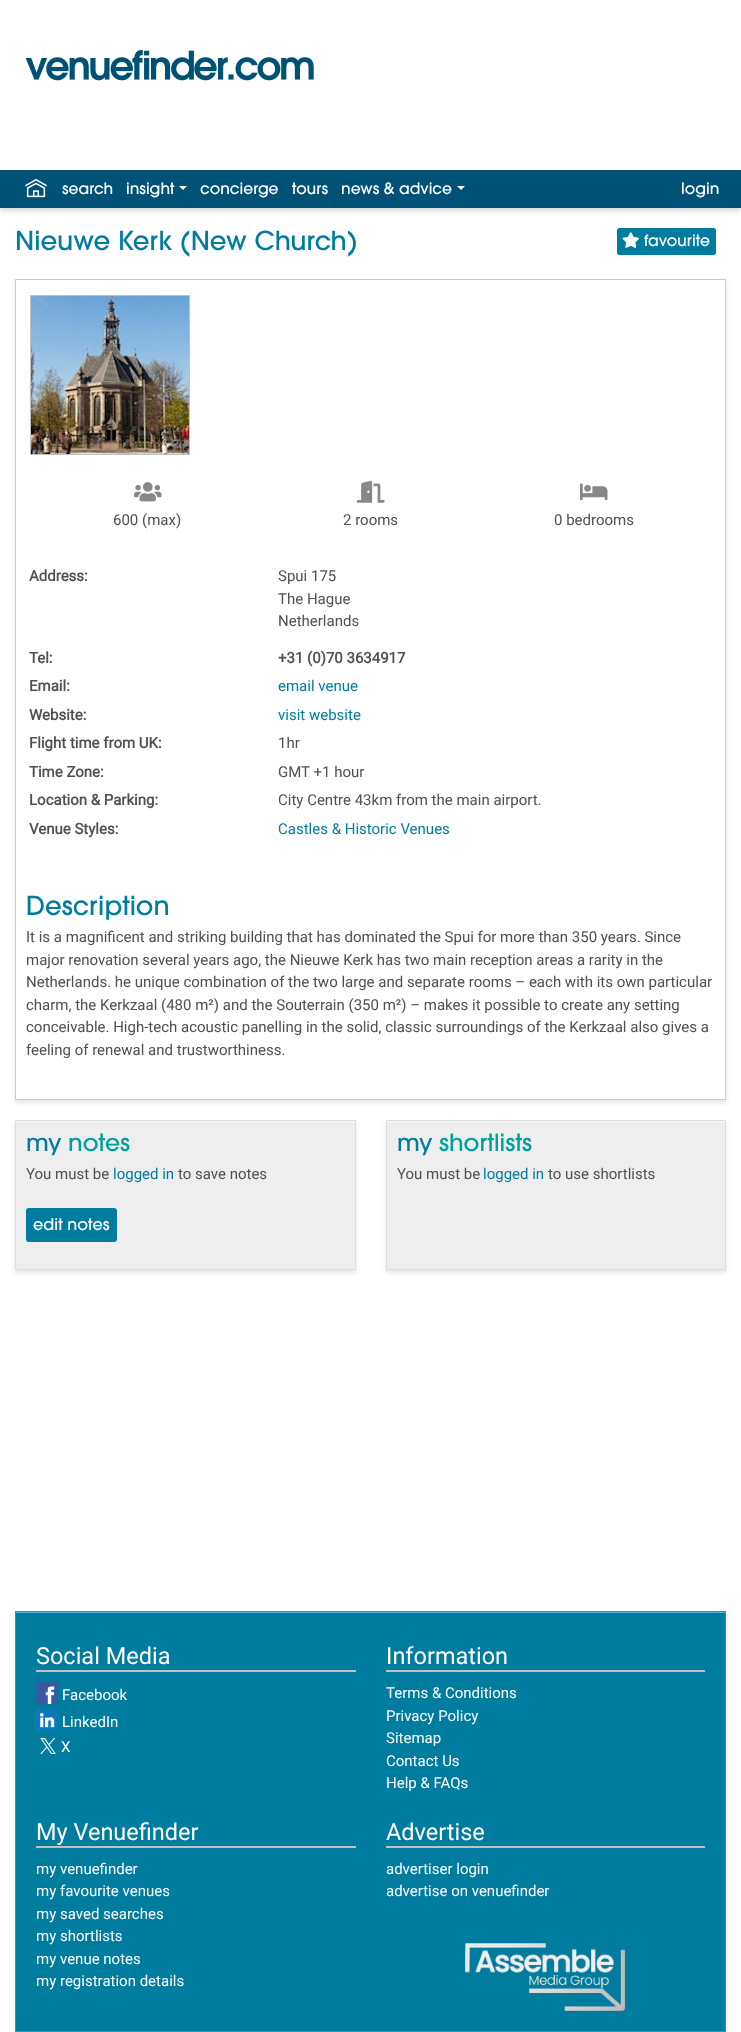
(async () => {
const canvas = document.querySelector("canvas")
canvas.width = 741
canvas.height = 2032
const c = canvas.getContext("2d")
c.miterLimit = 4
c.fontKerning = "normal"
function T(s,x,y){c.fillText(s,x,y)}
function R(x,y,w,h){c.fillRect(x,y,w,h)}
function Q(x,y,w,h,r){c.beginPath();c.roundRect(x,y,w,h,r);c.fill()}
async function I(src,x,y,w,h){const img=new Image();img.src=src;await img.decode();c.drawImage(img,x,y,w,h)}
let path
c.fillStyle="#fff"
R(0,0,741,2032)
await I("1.png",25,49,289,32)
c.fillStyle="#00000026"
c.filter="blur(2.5px)"
c.beginPath()
c.rect(0,173,741,38)
c.fill()
c.filter="none"
c.fillStyle="#005176"
R(0,170,741,38)
await I("2.png",25,178,22,20)
c.font="500 15.5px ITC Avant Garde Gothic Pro"
c.fillStyle="#fff"
T("search",62,194)
T("insight",126,194)
path = new Path2D("M179 186h8l-4 4z")
c.fill(path)
T("concierge",200,194)
T("tours",292,194)
T("news & advice",341,194)
path = new Path2D("M457 186h8l-4 4z")
c.fill(path)
T("login",681,194)
c.font="500 26px ITC Avant Garde Gothic Pro"
c.fillStyle="#007c9f"
T("Nieuwe Kerk (New Church)",15,250)
Q(617,228,99,27,2.5)
await I("3.png",622,232,17,16)
c.font="500 15.5px ITC Avant Garde Gothic Pro"
c.fillStyle="#fff"
T("favourite",644,246)
c.save()
path = new Path2D("M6 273h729v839h-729zm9 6h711v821h-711z")
c.clip(path,"evenodd")
c.fillStyle="#0000001a"
c.filter="blur(2.5px)"
c.beginPath()
c.rect(15,282,711,821)
c.fill()
c.filter="none"
c.restore()
c.strokeStyle="#ccc"
c.strokeRect(15.5,279.5,710,820)
c.strokeStyle="#c0c0c0"
c.strokeRect(30.5,295.5,159,159)
await I("4.png",31,296,158,158)
await I("5.png",134,482,28,20)
await I("6.png",357,480,28,23)
await I("7.png",580,483,28,17)
c.font="15px Roboto"
c.fillStyle="#505050"
T("600 (max)",113,525)
T("2 rooms",343,525)
T("0 bedrooms",554,525)
c.font="bold 15px Roboto"
T("Address:",29,581)
c.font="15px Roboto"
T("Spui 175",278,581)
T("The Hague",278,604)
T("Netherlands",278,626)
c.font="bold 15px Roboto"
T("Tel:",29,663)
T("+31 (0)70 3634917",278,663)
T("Email:",29,691)
c.font="15px Roboto"
c.fillStyle="#007c9f"
T("email venue",278,691)
c.font="bold 15px Roboto"
c.fillStyle="#505050"
T("Website:",29,720)
c.font="15px Roboto"
c.fillStyle="#007c9f"
T("visit website",278,720)
c.font="bold 15px Roboto"
c.fillStyle="#505050"
T("Flight time from UK:",29,748)
c.font="15px Roboto"
T("1hr",278,748)
c.font="bold 15px Roboto"
T("Time Zone:",29,777)
c.font="15px Roboto"
T("GMT +1 hour",278,777)
c.font="bold 15px Roboto"
T("Location & Parking:",29,805)
c.font="15px Roboto"
T("City Centre 43km from the main airport.",278,805)
c.font="bold 15px Roboto"
T("Venue Styles:",29,834)
c.font="15px Roboto"
c.fillStyle="#007c9f"
T("Castles & Historic Venues",278,834)
c.font="500 26px ITC Avant Garde Gothic Pro"
T("Description",26,915)
c.font="15px Roboto"
c.fillStyle="#505050"
T("It is a magnificent and striking building that has dominated the Spui for more than 350 years. Since",26,942)
T("major renovation several years ago, the Nieuwe Kerk has two main reception areas a rarity in the",26,965)
T("Netherlands. he unique combination of the two large and separate rooms – each with its own particular",26,987)
T("charm, the Kerkzaal (480 m²) and the Souterrain (350 m²) – makes it possible to create any setting",26,1010)
T("conceivable. High-tech acoustic panelling in the solid, classic surroundings of the Kerkzaal also gives a",26,1032)
T("feeling of renewal and trustworthiness.",26,1055)
c.fillStyle="#0000001a"
c.filter="blur(2.5px)"
c.beginPath()
c.rect(15,1123,341,150)
c.fill()
c.filter="none"
c.fillStyle="#eee"
R(16,1122,339,147)
c.fillStyle="#f7f7f7"
R(16,1121,339,1)
c.strokeStyle="#ddd"
c.strokeRect(15.5,1120.5,340,149)
c.font="500 23.5px ITC Avant Garde Gothic Pro"
c.fillStyle="#007c9f"
T("my",26,1151)
c.fillStyle="#00a19a"
T("notes",68,1151)
c.font="15px Roboto"
c.fillStyle="#505050"
T("You must be",26,1179)
c.fillStyle="#007c9f"
T("logged in",113,1179)
c.fillStyle="#505050"
T("to save notes",178,1179)
c.fillStyle="#007c9f"
Q(26,1208,91,34,3)
c.font="500 16px ITC Avant Garde Gothic Pro"
c.fillStyle="#fff"
T("edit notes",33,1230)
c.fillStyle="#0000001a"
c.filter="blur(2.5px)"
c.beginPath()
c.rect(386,1123,340,150)
c.fill()
c.filter="none"
c.fillStyle="#eee"
R(387,1122,338,147)
c.fillStyle="#f7f7f7"
R(387,1121,338,1)
c.strokeRect(386.5,1120.5,339,149)
c.font="500 23.5px ITC Avant Garde Gothic Pro"
c.fillStyle="#007c9f"
T("my",397,1151)
c.fillStyle="#00a19a"
T("shortlists",439,1151)
c.font="15px Roboto"
c.fillStyle="#505050"
T("You must be",397,1179)
c.fillStyle="#007c9f"
T("logged in",483,1179)
c.fillStyle="#505050"
T("to use shortlists",548,1179)
c.fillStyle="#0000001a"
c.filter="blur(2.5px)"
c.beginPath()
c.rect(15,1614,711,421)
c.fill()
c.filter="none"
c.fillStyle="#007c9f"
R(16,1613,709,418)
c.fillStyle="#54b9df"
R(16,1612,709,1)
c.strokeStyle="#2497c2"
c.strokeRect(15.5,1611.5,710,420)
c.fillStyle="#c0c0c0"
R(36,1670,320,2)
c.font="23.5px Roboto"
c.fillStyle="#fff"
T("Social Media",36,1664)
await I("8.png",36,1682,22,22)
c.font="15px Roboto"
T("Facebook",62,1700)
await I("9.png",36,1709,22,22)
T("LinkedIn",62,1727)
await I("10.png",40,1738,16,16)
T("X",61,1752)
c.fillStyle="#c0c0c0"
R(386,1670,319,2)
c.font="23.5px Roboto"
c.fillStyle="#fff"
T("Information",386,1664)
c.font="15px Roboto"
T("Terms & Conditions",386,1698)
T("Privacy Policy",386,1721)
T("Sitemap",386,1743)
T("Contact Us",386,1766)
T("Help & FAQs",386,1788)
c.fillStyle="#c0c0c0"
R(36,1846,320,2)
c.font="23.5px Roboto"
c.fillStyle="#fff"
T("My Venuefinder",36,1840)
c.font="15px Roboto"
T("my venuefinder",36,1874)
T("my favourite venues",36,1896)
T("my saved searches",36,1919)
T("my shortlists",36,1941)
T("my venue notes",36,1964)
T("my registration details",36,1986)
c.fillStyle="#c0c0c0"
R(386,1846,319,2)
c.font="23.5px Roboto"
c.fillStyle="#fff"
T("Advertise",386,1840)
c.font="15px Roboto"
T("advertiser login",386,1874)
T("advertise on venuefinder",386,1896)
await I("11.png",465,1943,160,68)
})()
